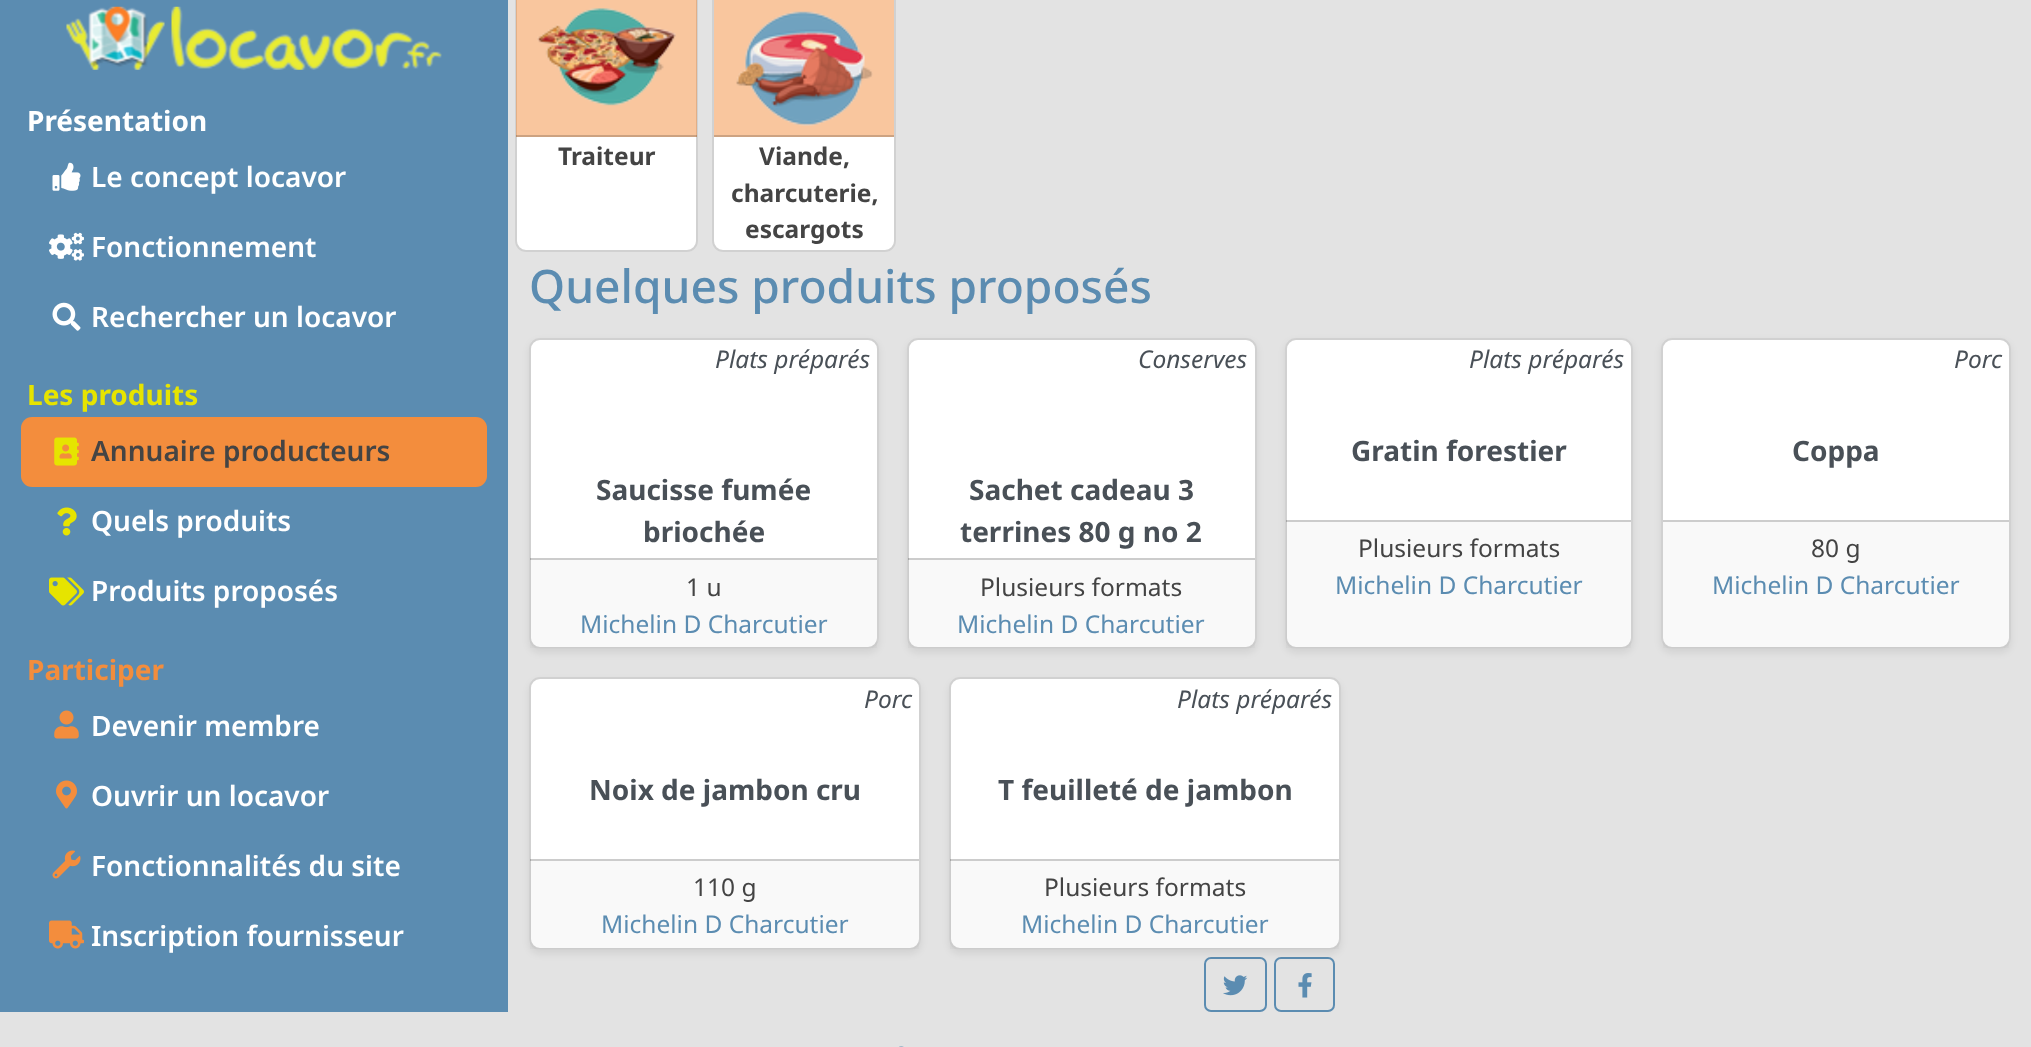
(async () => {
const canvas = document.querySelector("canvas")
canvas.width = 2031
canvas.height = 1047
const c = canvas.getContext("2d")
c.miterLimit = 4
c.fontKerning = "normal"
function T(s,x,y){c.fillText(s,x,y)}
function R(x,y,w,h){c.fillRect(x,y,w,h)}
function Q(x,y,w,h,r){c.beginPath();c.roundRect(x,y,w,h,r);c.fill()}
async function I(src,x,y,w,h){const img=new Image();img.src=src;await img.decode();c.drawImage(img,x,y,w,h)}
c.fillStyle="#e3e3e3"
R(0,0,2031,1047)
c.fillStyle="#5b8cb1"
R(0,0,508,1012)
await I("1.png",66,6,99,64)
await I("2.png",171,6,271,64)
c.font="bold 28px Noto Sans"
c.fillStyle="#fff"
T("Présentation",27,131)
await I("3.png",52,162,29,29)
c.font="600 28px Noto Sans"
T("Le concept locavor",91,187)
await I("4.png",49,232,35,29)
T("Fonctionnement",91,257)
await I("5.png",52,302,29,29)
T("Rechercher un locavor",91,327)
c.font="bold 28px Noto Sans"
c.fillStyle="#e6e400"
T("Les produits",27,405)
c.fillStyle="#f38d3d"
Q(21,417,466,70,11)
await I("6.png",54,437,25,29)
c.font="600 28px Noto Sans"
c.fillStyle="#444"
T("Annuaire producteurs",91,461)
await I("7.png",57,507,20,29)
c.fillStyle="#fff"
T("Quels produits",91,531)
await I("8.png",49,577,35,29)
T("Produits proposés",91,601)
c.font="bold 28px Noto Sans"
c.fillStyle="#f38d3d"
T("Participer",27,680)
await I("9.png",54,710,25,29)
c.font="600 28px Noto Sans"
c.fillStyle="#fff"
T("Devenir membre",91,736)
await I("10.png",56,780,21,29)
T("Ouvrir un locavor",91,806)
await I("11.png",52,850,29,29)
T("Fonctionnalités du site",91,876)
await I("12.png",49,920,35,29)
T("Inscription fournisseur",91,946)
Q(515,-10,183,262,11)
c.beginPath()
c.roundRect(516,-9,181,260,10)
c.strokeStyle="#0000002e"
c.lineWidth=2
c.stroke()
c.fillStyle="#f38d3d80"
R(516,0,181,137)
c.fillStyle="#0000002e"
R(516,135,181,2)
await I("13.png",537,8,139,98)
c.font="bold 24.5px Noto Sans"
c.fillStyle="#444"
T("Traiteur",558,165)
c.fillStyle="#fff"
Q(712,-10,184,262,11)
c.beginPath()
c.roundRect(713,-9,182,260,10)
c.stroke()
c.fillStyle="#f9c69e"
R(714,0,180,135)
c.fillStyle="#cda382"
R(714,135,180,2)
await I("14.png",736,11,137,115)
c.fillStyle="#444"
T("Viande,",759,165)
T("charcuterie,",731,202)
T("escargots",745,238)
c.font="500 46.1px Noto Sans"
c.fillStyle="#5b8cb1"
T("Quelques produits proposés",529,303)
c.fillStyle="#00000012"
c.filter="blur(3.5px)"
c.beginPath()
c.roundRect(529,341,350,312,11)
c.fill()
c.filter="none"
c.fillStyle="#fff"
Q(529,338,350,311,11)
c.beginPath()
c.roundRect(530,339,348,309,10)
c.stroke()
c.font="italic 24.5px Noto Sans"
c.fillStyle="#495057"
T("Plats préparés",715,368)
c.font="bold 28px Noto Sans"
T("Saucisse fumée",596,500)
T("briochée",643,542)
c.fillStyle="#44444408"
R(530,558,347,90)
c.fillStyle="#0000002e"
R(530,558,347,2)
c.font="24.5px Noto Sans"
c.fillStyle="#444"
T("1 u",686,596)
c.fillStyle="#5b8cb1"
T("Michelin D Charcutier",580,633)
c.fillStyle="#00000012"
c.filter="blur(3.5px)"
c.beginPath()
c.roundRect(907,341,350,312,11)
c.fill()
c.filter="none"
c.fillStyle="#fff"
Q(907,338,350,311,11)
c.beginPath()
c.roundRect(908,339,348,309,10)
c.stroke()
c.font="italic 24.5px Noto Sans"
c.fillStyle="#495057"
T("Conserves",1138,368)
c.font="bold 28px Noto Sans"
T("Sachet cadeau 3",969,500)
T("terrines 80 g no 2",960,542)
c.fillStyle="#44444408"
R(908,558,347,90)
c.fillStyle="#0000002e"
R(908,558,347,2)
c.font="24.5px Noto Sans"
c.fillStyle="#444"
T("Plusieurs formats",980,596)
c.fillStyle="#5b8cb1"
T("Michelin D Charcutier",957,633)
c.fillStyle="#00000012"
c.filter="blur(3.5px)"
c.beginPath()
c.roundRect(1285,341,348,312,11)
c.fill()
c.filter="none"
c.fillStyle="#fff"
Q(1285,338,348,311,11)
c.beginPath()
c.roundRect(1286,339,346,309,10)
c.stroke()
c.font="italic 24.5px Noto Sans"
c.fillStyle="#495057"
T("Plats préparés",1469,368)
c.font="bold 28px Noto Sans"
T("Gratin forestier",1351,461)
c.fillStyle="#44444408"
R(1286,520,345,128)
c.fillStyle="#0000002e"
R(1286,520,345,2)
c.font="24.5px Noto Sans"
c.fillStyle="#444"
T("Plusieurs formats",1358,557)
c.fillStyle="#5b8cb1"
T("Michelin D Charcutier",1335,594)
c.fillStyle="#00000012"
c.filter="blur(3.5px)"
c.beginPath()
c.roundRect(1661,341,350,312,11)
c.fill()
c.filter="none"
c.fillStyle="#fff"
Q(1661,338,350,311,11)
c.beginPath()
c.roundRect(1662,339,348,309,10)
c.stroke()
c.font="italic 24.5px Noto Sans"
c.fillStyle="#495057"
T("Porc",1954,368)
c.font="bold 28px Noto Sans"
T("Coppa",1792,461)
c.fillStyle="#44444408"
R(1663,522,346,126)
c.fillStyle="#cdcdcd"
R(1663,520,346,2)
c.font="24.5px Noto Sans"
c.fillStyle="#444"
T("80 g",1811,557)
c.fillStyle="#5b8cb1"
T("Michelin D Charcutier",1712,594)
c.fillStyle="#00000012"
c.filter="blur(3.5px)"
c.beginPath()
c.roundRect(529,681,392,273,11)
c.fill()
c.filter="none"
c.fillStyle="#fff"
Q(529,677,392,273,11)
c.beginPath()
c.roundRect(530,678,390,271,10)
c.stroke()
c.font="italic 24.5px Noto Sans"
c.fillStyle="#495057"
T("Porc",864,708)
c.font="bold 28px Noto Sans"
T("Noix de jambon cru",589,800)
c.fillStyle="#44444408"
R(530,859,389,90)
c.fillStyle="#0000002e"
R(530,859,389,2)
c.font="24.5px Noto Sans"
c.fillStyle="#444"
T("110 g",693,896)
c.fillStyle="#5b8cb1"
T("Michelin D Charcutier",601,933)
c.beginPath()
c.roundRect(1205,958,61,53,6)
c.strokeStyle="#5b8cb1"
c.stroke()
c.beginPath()
c.roundRect(1275,958,59,53,6)
c.stroke()
c.fillStyle="#00000012"
c.filter="blur(3.5px)"
c.beginPath()
c.roundRect(949,681,392,273,11)
c.fill()
c.filter="none"
c.fillStyle="#fff"
Q(949,677,392,273,11)
c.beginPath()
c.roundRect(950,678,390,271,10)
c.strokeStyle="#0000002e"
c.stroke()
c.font="italic 24.5px Noto Sans"
c.fillStyle="#495057"
T("Plats préparés",1177,708)
c.font="bold 28px Noto Sans"
T("T feuilleté de jambon",998,800)
c.fillStyle="#44444408"
R(950,859,389,90)
c.fillStyle="#0000002e"
R(950,859,389,2)
c.font="24.5px Noto Sans"
c.fillStyle="#444"
T("Plusieurs formats",1044,896)
c.fillStyle="#5b8cb1"
T("Michelin D Charcutier",1021,933)
await I("15.png",1223,975,25,21)
await I("16.png",1298,973,14,25)
await I("17.png",899,1046,5,1)
})()
